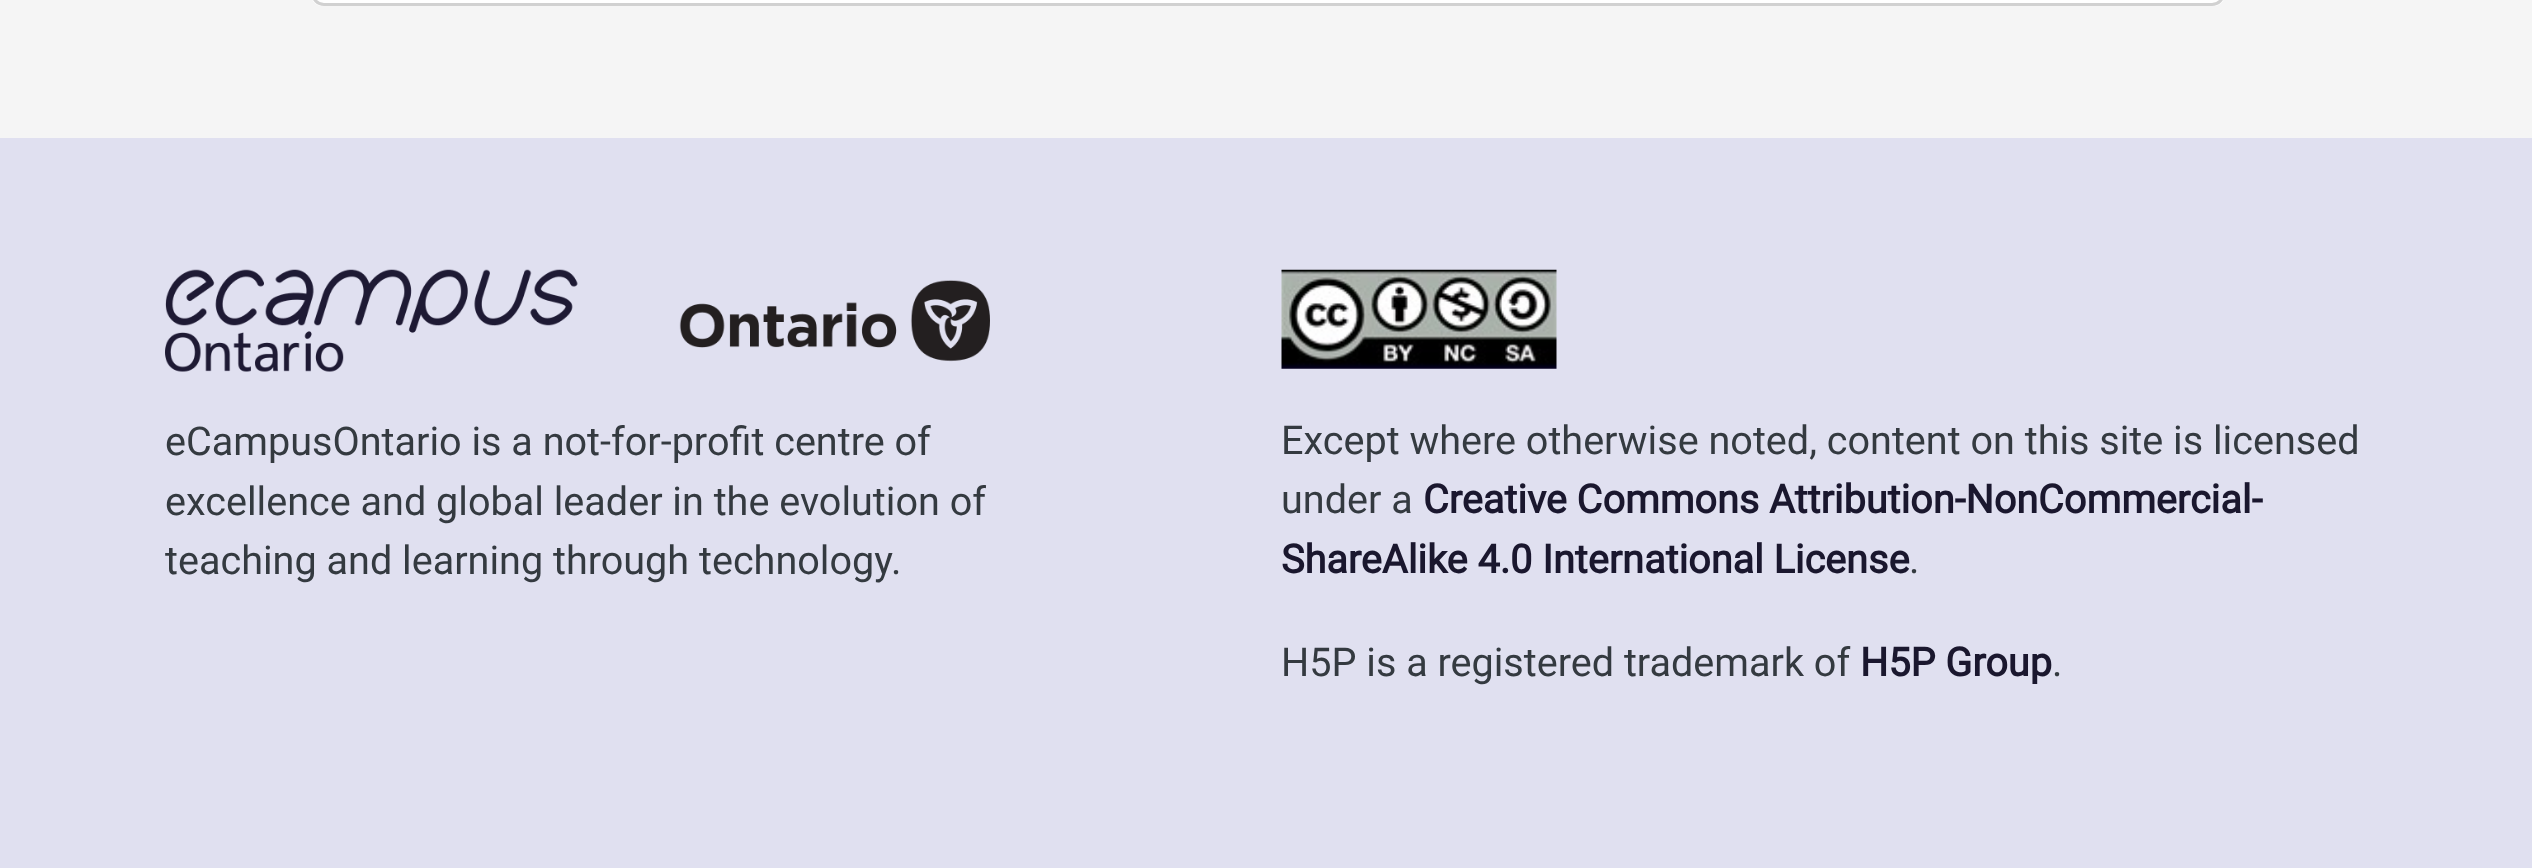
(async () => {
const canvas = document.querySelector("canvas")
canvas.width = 2532
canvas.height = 868
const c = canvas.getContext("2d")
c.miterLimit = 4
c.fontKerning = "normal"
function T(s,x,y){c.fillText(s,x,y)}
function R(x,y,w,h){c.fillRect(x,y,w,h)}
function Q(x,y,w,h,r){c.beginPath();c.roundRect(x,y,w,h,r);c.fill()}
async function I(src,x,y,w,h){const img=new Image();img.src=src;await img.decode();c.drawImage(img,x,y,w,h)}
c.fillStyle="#f5f5f5"
R(0,0,2532,868)
c.fillStyle="#fff"
Q(311,-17,1914,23,17)
c.beginPath()
c.roundRect(312.5,-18.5,1911,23,15.5)
c.strokeStyle="#0000002e"
c.lineWidth=3
c.stroke()
c.fillStyle="#e0e0f0"
R(0,138,2532,730)
await I("1.png",165,269,825,103)
c.font="39.6px Roboto"
c.fillStyle="#343a40"
T("eCampusOntario is a not-for-profit centre of",165,455)
T("excellence and global leader in the evolution of",165,515)
T("teaching and learning through technology.",165,574)
await I("2.png",1281,269,276,100)
T("Except where otherwise noted, content on this site is licensed",1281,454)
T("under a",1281,513)
c.font="bold 39.6px Roboto"
c.fillStyle="#1a172e"
T("Creative Commons Attribution-NonCommercial-",1423,513)
T("ShareAlike 4.0 International License",1281,573)
c.font="39.6px Roboto"
c.fillStyle="#343a40"
T(".",1909,573)
T("H5P is a registered trademark of",1281,676)
c.font="bold 39.6px Roboto"
c.fillStyle="#1a172e"
T("H5P Group",1860,676)
c.font="39.6px Roboto"
c.fillStyle="#343a40"
T(".",2052,676)
})()
